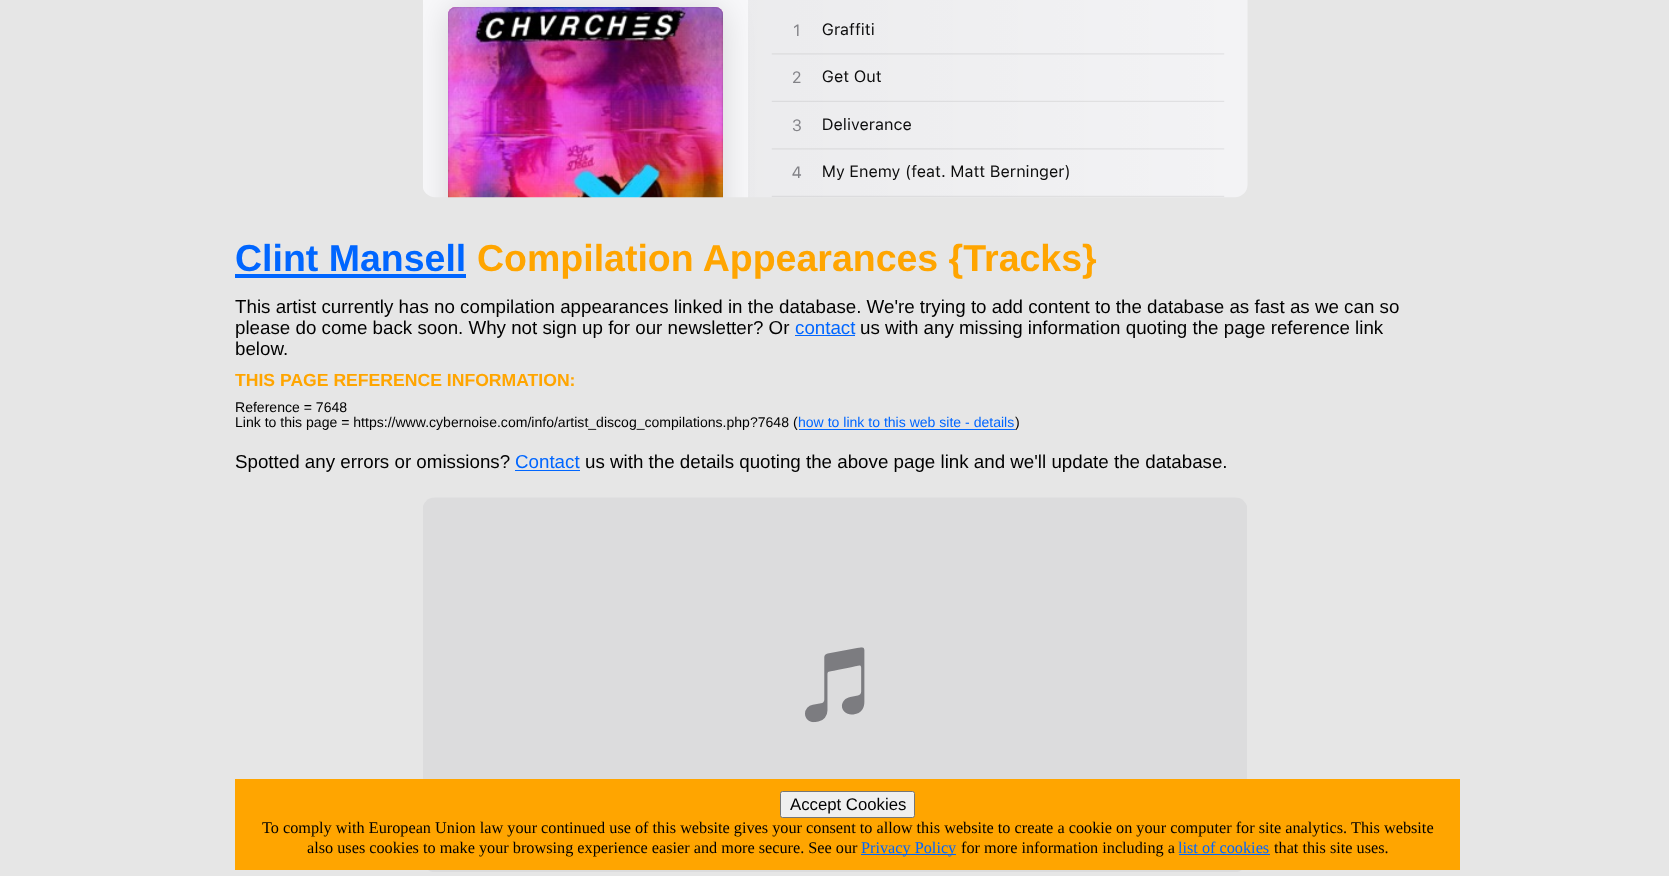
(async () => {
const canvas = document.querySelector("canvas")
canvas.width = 1669
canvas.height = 876
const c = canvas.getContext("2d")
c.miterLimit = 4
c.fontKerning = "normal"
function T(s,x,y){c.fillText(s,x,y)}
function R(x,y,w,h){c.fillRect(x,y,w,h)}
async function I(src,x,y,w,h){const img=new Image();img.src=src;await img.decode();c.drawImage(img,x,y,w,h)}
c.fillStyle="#e6e6e6"
R(0,0,1669,876)
await I("1.png",423,0,825,198)
c.font="bold 37.5px Liberation Sans"
c.fillStyle="#06f"
T("Clint Mansell",235,271)
R(235,274,231,4)
c.fillStyle="#ffa500"
T("Compilation Appearances {Tracks}",477,271)
c.font="18.75px Liberation Sans"
c.fillStyle="#000"
T("This artist currently has no compilation appearances linked in the database. We're trying to add content to the database as fast as we can so",235,313)
T("please do come back soon. Why not sign up for our newsletter? Or",235,334)
c.fillStyle="#06f"
T("contact",795,334)
R(795,335,60,1)
c.fillStyle="#000"
T("us with any missing information quoting the page reference link",860,334)
T("below.",235,355)
c.font="bold 17.6px Liberation Sans"
c.fillStyle="#ffa500"
T("THIS PAGE REFERENCE INFORMATION:",235,386)
c.font="14.05px Liberation Sans"
c.fillStyle="#000"
T("Reference = 7648",235,412)
T("Link to this page = https://www.cybernoise.com/info/artist_discog_compilations.php?7648 (",235,427)
c.fillStyle="#06f"
T("how to link to this web site - details",798,427)
R(799,429,216,1)
c.fillStyle="#000"
T(")",1015,427)
c.font="18.75px Liberation Sans"
T("Spotted any errors or omissions?",235,468)
c.fillStyle="#06f"
T("Contact",515,468)
R(515,470,65,1)
c.fillStyle="#000"
T("us with the details quoting the above page link and we'll update the database.",585,468)
await I("2.png",423,497,824,375)
c.fillStyle="#ffa500"
R(235,779,1225,91)
c.fillStyle="#efefef"
c.beginPath()
c.roundRect(780.5,791.5,134,26,2)
c.fill()
c.strokeStyle="#767676"
c.stroke()
c.font="16.75px Liberation Sans"
c.fillStyle="#000"
T("Accept Cookies",790,810)
c.font="16.25px Liberation Serif"
T("To comply with European Union law your continued use of this website gives your consent to allow this website to create a cookie on your computer for site analytics.",262,833)
T("This website",1351,833)
T("also uses cookies to make your browsing experience easier and more secure. See our",307,853)
c.fillStyle="#06f"
R(861,854,95,1)
T("Privacy Policy",861,853)
c.fillStyle="#000"
T("for more information including a",961,853)
c.fillStyle="#06f"
T("list of cookies",1178,853)
R(1179,854,91,1)
c.fillStyle="#000"
T("that this site uses.",1274,853)
})()
